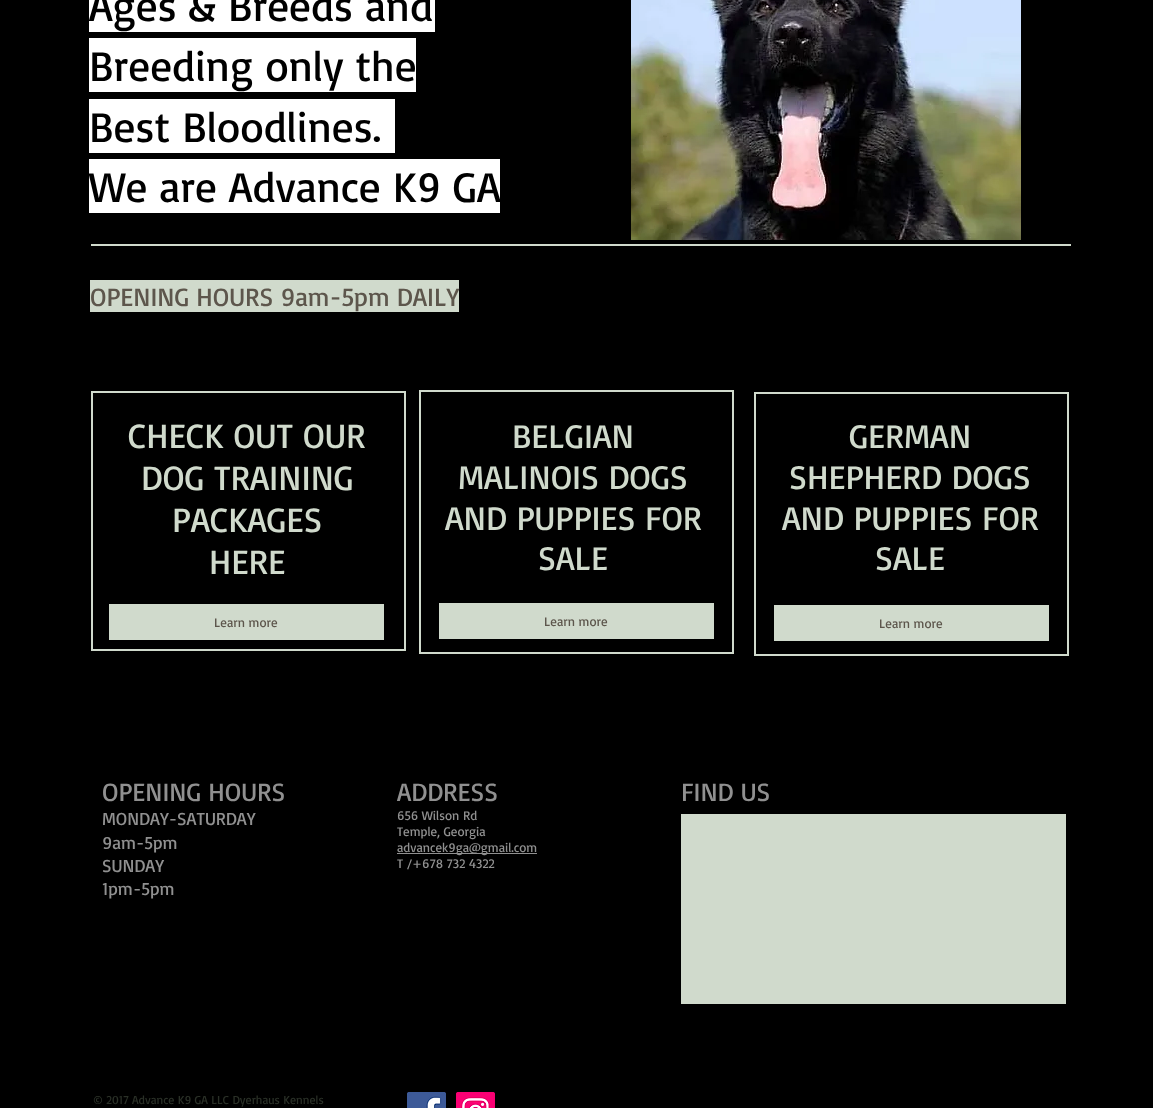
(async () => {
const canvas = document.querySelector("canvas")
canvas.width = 1153
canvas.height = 1108
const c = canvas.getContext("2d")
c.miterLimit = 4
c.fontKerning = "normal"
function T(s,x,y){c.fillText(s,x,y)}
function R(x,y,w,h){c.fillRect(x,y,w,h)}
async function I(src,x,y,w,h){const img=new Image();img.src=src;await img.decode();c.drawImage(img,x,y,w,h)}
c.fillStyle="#000"
R(0,0,1153,1108)
c.fillStyle="#fff"
R(89,0,346,32)
c.font="43px Basic"
c.fillStyle="#000"
T("Ages & Breeds and",89,21)
c.fillStyle="#fff"
R(89,38,327,54)
c.fillStyle="#000"
T("Breeding only the",89,81)
c.fillStyle="#fff"
R(89,99,306,54)
c.fillStyle="#000"
T("Best Bloodlines.",89,142)
c.fillStyle="#fff"
R(89,159,411,54)
c.fillStyle="#000"
T("We are Advance K9 GA",89,202)
await I("1.png",631,0,390,240)
c.fillStyle="#d0dacc"
R(91,244,980,2)
R(90,280,369,32)
c.font="26px Basic"
c.fillStyle="#5d564c"
T("OPENING HOURS 9am-5pm DAILY",90,306)
c.strokeStyle="#d0dacc"
c.lineWidth=2
c.strokeRect(92,392,313,258)
c.font="35px Basic"
c.fillStyle="#d0dacc"
T("CHECK OUT OUR",128,448)
T("DOG TRAINING",141,490)
T("PACKAGES",172,532)
T("HERE",209,574)
R(109,604,275,36)
c.font="13px Basic"
c.fillStyle="#5d564c"
T("Learn more",214,627)
c.strokeRect(420,391,313,262)
c.font="34px Basic"
c.fillStyle="#d0dacc"
T("BELGIAN",512,448)
T("MALINOIS DOGS",458,489)
T("AND PUPPIES FOR",445,530)
T("SALE",538,570)
R(439,603,275,36)
c.font="13px Basic"
c.fillStyle="#5d564c"
T("Learn more",544,626)
c.strokeRect(755,393,313,262)
c.font="34px Basic"
c.fillStyle="#d0dacc"
T("GERMAN",849,448)
T("SHEPHERD DOGS",789,489)
T("AND PUPPIES FOR",782,530)
T("SALE",875,570)
R(774,605,275,36)
c.font="13px Basic"
c.fillStyle="#5d564c"
T("Learn more",879,628)
c.font="26px Basic"
c.fillStyle="#909090"
T("OPENING HOURS",102,801)
c.font="18px Basic"
T("MONDAY-SATURDAY",102,825)
T("9am-5pm",102,849)
T("SUNDAY",102,872)
T("1pm-5pm",102,895)
c.font="26px Basic"
T("ADDRESS",397,801)
c.font="13px Basic"
T("656 Wilson Rd",397,820)
T("Temple, Georgia",397,836)
R(397,853,140,1)
T("advancek9ga@gmail.com",397,852)
T("T /+678 732 4322",397,868)
c.font="26px Basic"
T("FIND US",681,801)
c.fillStyle="#d0dacc"
R(681,814,385,190)
c.font="12px Basic"
c.fillStyle="#2a3027"
T("© 2017 Advance K9 GA LLC Dyerhaus Kennels",93,1104)
await I("2.png",407,1092,39,16)
await I("3.png",456,1092,39,16)
})()
